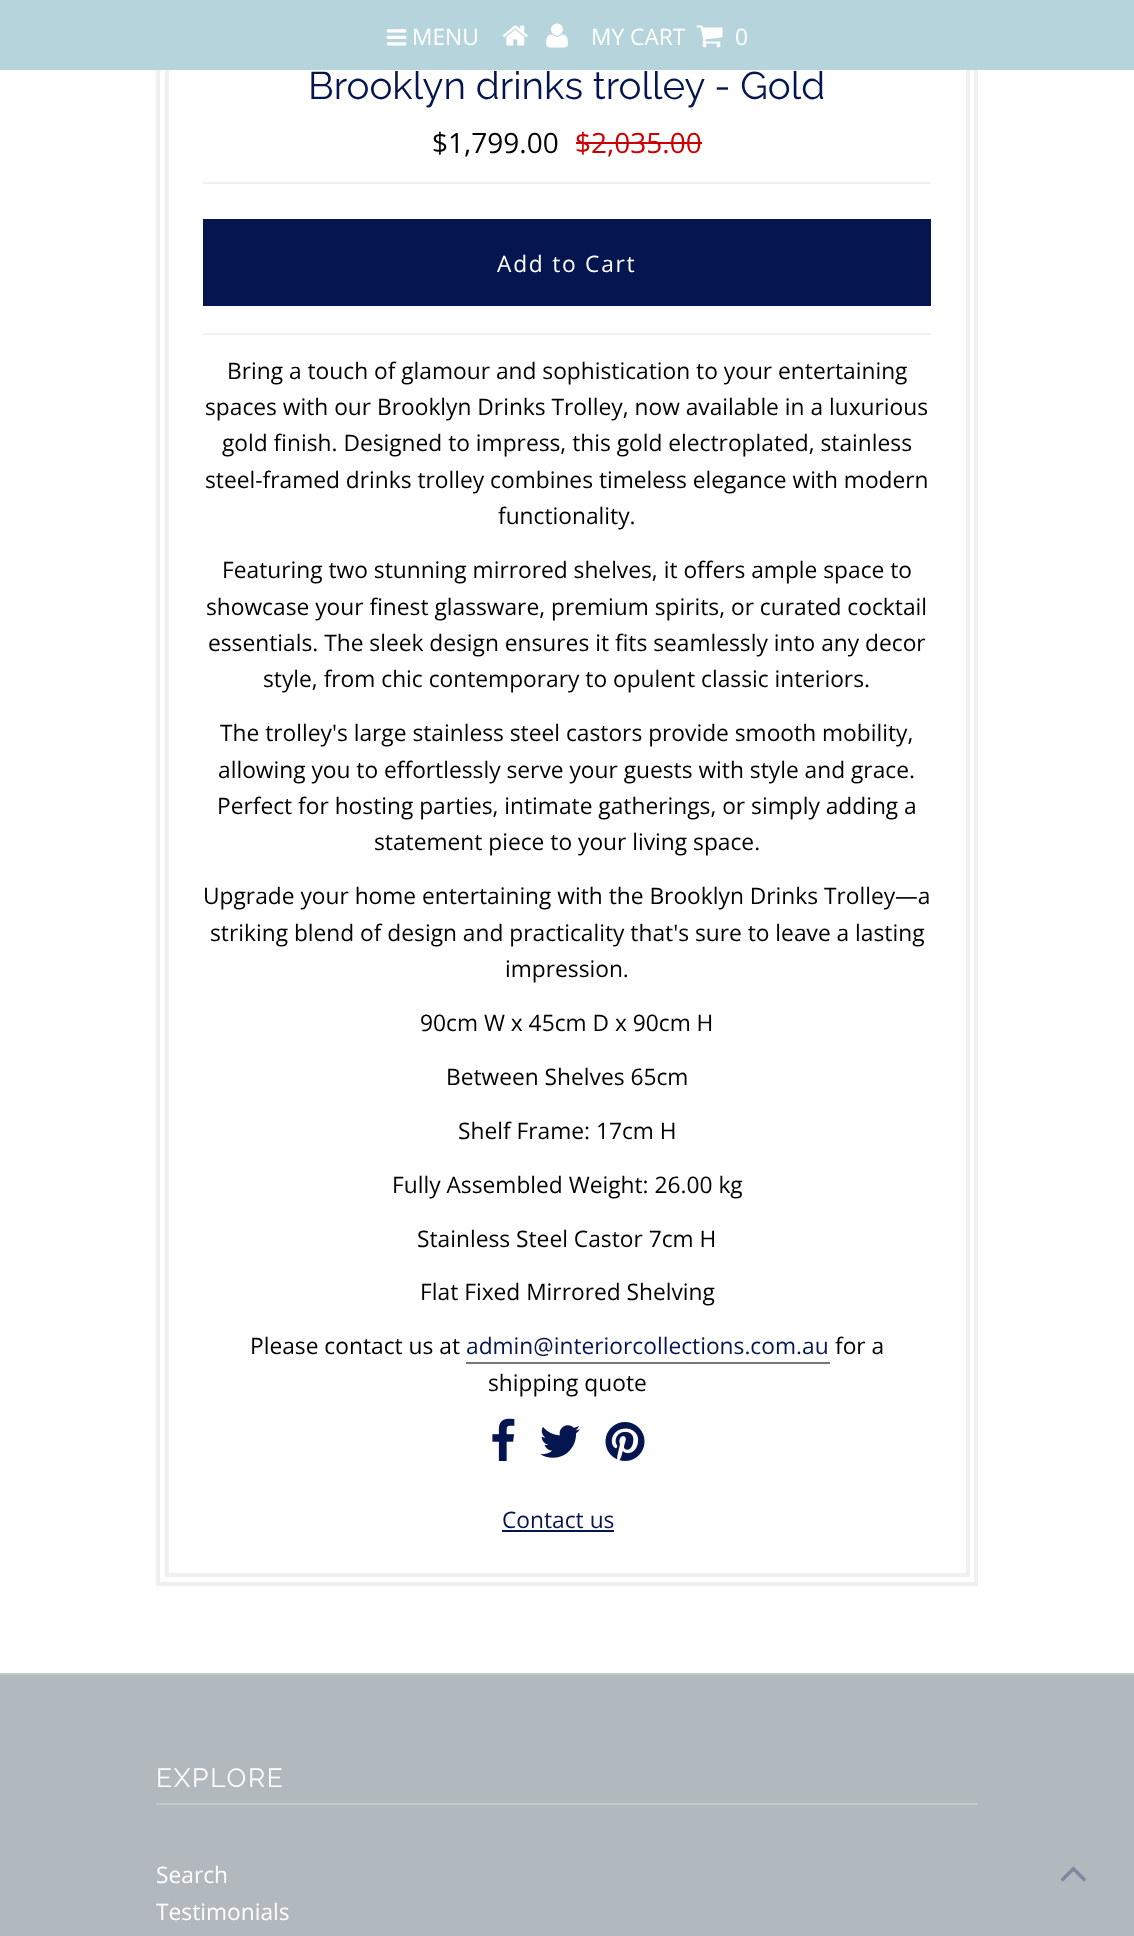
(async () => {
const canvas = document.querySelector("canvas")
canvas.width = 1134
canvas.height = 1936
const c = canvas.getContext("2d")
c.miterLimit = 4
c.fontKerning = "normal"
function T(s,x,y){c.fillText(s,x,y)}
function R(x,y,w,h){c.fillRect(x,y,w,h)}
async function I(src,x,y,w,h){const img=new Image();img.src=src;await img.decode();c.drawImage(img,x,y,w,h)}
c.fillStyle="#fff"
R(0,0,1134,1936)
c.strokeStyle="#f0f0f0"
c.lineWidth=4
c.strokeRect(158,18,818,1566)
c.strokeRect(167,27,801,1548)
c.fillStyle="#b6d4dc"
R(0,0,1134,70)
await I("1.png",386,29,21,17)
c.font="22.75px Open Sans"
c.fillStyle="#fff"
T("MENU",412,45)
await I("2.png",502,25,26,21)
await I("3.png",546,23,22,25)
T("MY CART",591,45)
await I("4.png",696,25,27,23)
T("0",735,45)
c.font="38.5px Raleway"
c.fillStyle="#051550"
T("Brooklyn drinks trolley - Gold",308,99)
c.fillStyle="#f0f0f0"
R(203,333,728,2)
R(203,182,728,2)
c.font="28px Open Sans"
c.fillStyle="#000"
T("$1,799.00",432,153)
c.fillStyle="#c00"
T("$2,035.00",575,153)
R(576,142,126,2)
c.fillStyle="#051550"
R(203,219,728,87)
c.letterSpacing="1.75px"
c.font="22.75px Open Sans"
c.fillStyle="#fff"
T("Add to Cart",497,272)
c.letterSpacing="0px"
c.fillStyle="#000"
T("Bring a touch of glamour and sophistication to your entertaining",227,379)
T("spaces with our Brooklyn Drinks Trolley, now available in a luxurious",205,415)
T("gold finish. Designed to impress, this gold electroplated, stainless",222,451)
T("steel-framed drinks trolley combines timeless elegance with modern",205,488)
T("functionality.",498,524)
T("Featuring two stunning mirrored shelves, it offers ample space to",222,578)
T("showcase your finest glassware, premium spirits, or curated cocktail",206,615)
T("essentials. The sleek design ensures it fits seamlessly into any decor",208,651)
T("style, from chic contemporary to opulent classic interiors.",263,687)
T("The trolley's large stainless steel castors provide smooth mobility,",220,741)
T("allowing you to effortlessly serve your guests with style and grace.",218,778)
T("Perfect for hosting parties, intimate gatherings, or simply adding a",217,814)
T("statement piece to your living space.",374,850)
T("Upgrade your home entertaining with the Brooklyn Drinks Trolley—a",203,904)
T("striking blend of design and practicality that's sure to leave a lasting",210,941)
T("impression.",505,977)
T("90cm W x 45cm D x 90cm H",420,1031)
T("Between Shelves 65cm",446,1085)
T("Shelf Frame: 17cm H",458,1139)
T("Fully Assembled Weight: 26.00 kg",392,1193)
T("Stainless Steel Castor 7cm H",417,1247)
T("Flat Fixed Mirrored Shelving",420,1300)
T("Please contact us at",250,1354)
c.fillStyle="#051550"
T("admin@interiorcollections.com.au",466,1354)
c.fillStyle="#777"
R(466,1362,364,2)
c.fillStyle="#000"
T("for a",835,1354)
T("shipping quote",488,1391)
await I("5.png",492,1418,23,43)
await I("6.png",540,1425,40,33)
await I("7.png",605,1422,40,39)
c.fillStyle="#051550"
T("Contact us",502,1528)
R(502,1530,112,2)
c.fillStyle="#b1b8be"
R(0,1675,1134,261)
c.fillStyle="#c4c9cc"
R(0,1673,1134,2)
R(156,1803,822,2)
c.letterSpacing="1.75px"
c.font="26.25px Raleway"
c.fillStyle="#fff"
T("EXPLORE",156,1787)
c.letterSpacing="0px"
c.font="22.75px Open Sans"
T("Search",156,1883)
T("Testimonials",156,1920)
await I("8.png",1060,1866,26,16)
})()
